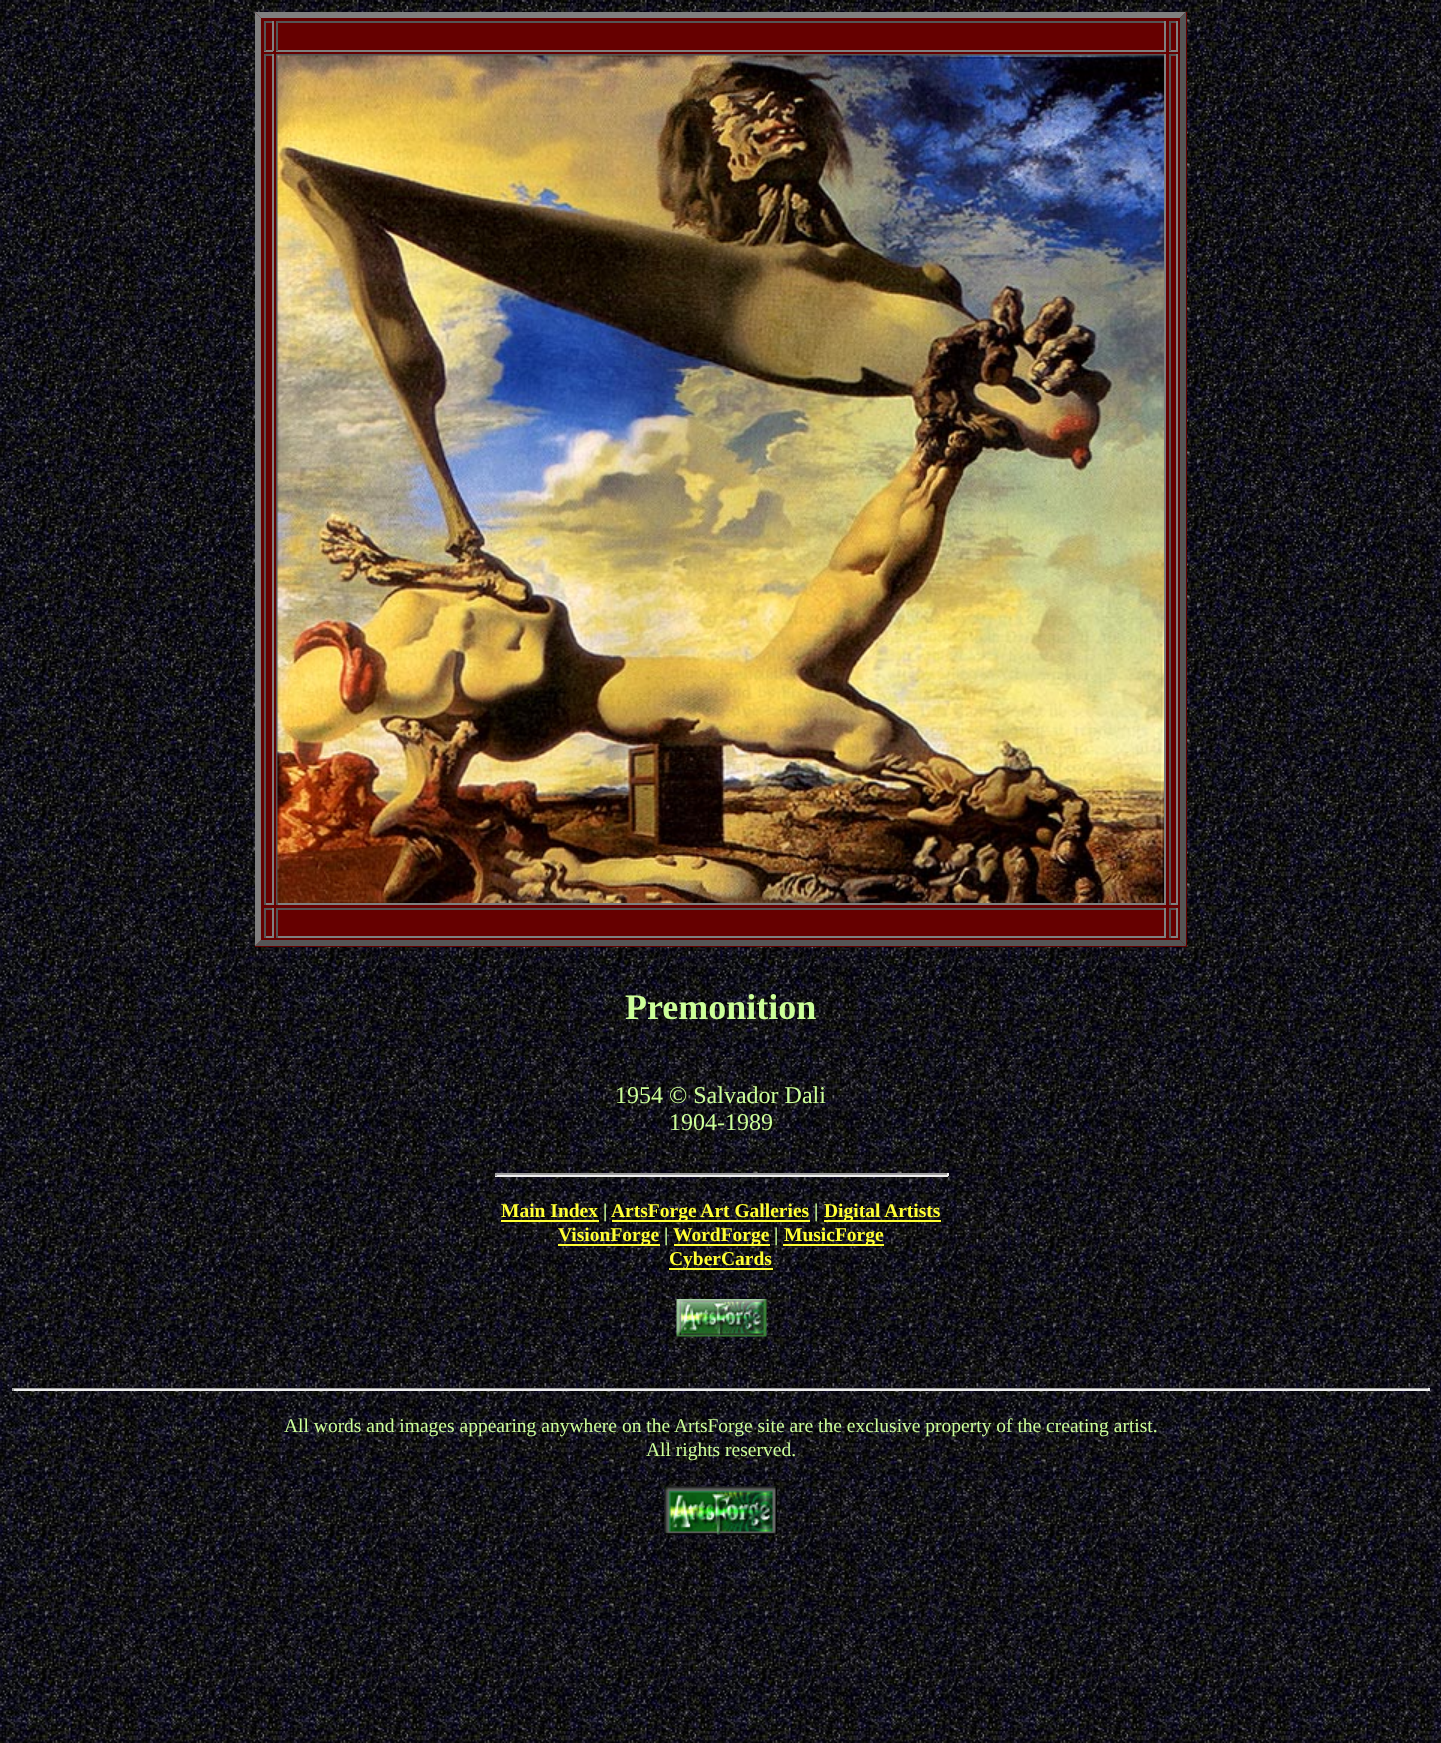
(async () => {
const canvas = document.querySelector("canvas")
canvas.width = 1441
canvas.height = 1743
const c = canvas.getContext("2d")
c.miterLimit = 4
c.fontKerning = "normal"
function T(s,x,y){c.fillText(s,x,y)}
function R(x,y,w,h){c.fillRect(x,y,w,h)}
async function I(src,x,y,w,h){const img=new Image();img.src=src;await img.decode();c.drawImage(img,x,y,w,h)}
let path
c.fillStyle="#fff"
R(0,0,1441,1743)
await I("1.png",0,0,1441,1743)
c.fillStyle="#600"
R(255,12,932,935)
c.fillStyle="#808080"
path = new Path2D("M255 12h931l-6 6h-919z")
c.fill(path)
c.fillStyle="#555"
path = new Path2D("M1186 12v934l-6-6v-922z")
c.fill(path)
path = new Path2D("M1186 946h-931l6-6h919z")
c.fill(path)
c.fillStyle="#808080"
path = new Path2D("M255 946v-934l6 6v922z")
c.fill(path)
c.fillStyle="#555"
R(264,21,9,2)
c.fillStyle="#808080"
R(272,21,2,30)
R(264,50,9,2)
c.fillStyle="#555"
R(264,21,2,30)
R(276,21,890,2)
c.fillStyle="#808080"
R(1164,21,2,30)
R(276,50,890,2)
c.fillStyle="#555"
R(276,21,2,30)
R(1169,21,9,2)
c.fillStyle="#808080"
R(1176,21,2,30)
R(1169,50,9,2)
c.fillStyle="#555"
R(1169,21,2,30)
R(264,54,9,2)
c.fillStyle="#808080"
R(272,54,2,851)
R(264,903,9,2)
c.fillStyle="#555"
R(264,54,2,851)
R(276,54,890,2)
c.fillStyle="#808080"
R(1164,54,2,851)
R(276,903,890,2)
c.fillStyle="#555"
R(276,54,2,851)
await I("2.png",277,55,887,848)
R(1169,54,9,2)
c.fillStyle="#808080"
R(1176,54,2,851)
R(1169,903,9,2)
c.fillStyle="#555"
R(1169,54,2,851)
R(264,908,9,2)
c.fillStyle="#808080"
R(272,908,2,30)
R(264,936,9,2)
c.fillStyle="#555"
R(264,908,2,30)
R(276,908,890,2)
c.fillStyle="#808080"
R(1164,908,2,30)
R(276,936,890,2)
c.fillStyle="#555"
R(276,908,2,30)
R(1169,908,9,2)
c.fillStyle="#808080"
R(1176,908,2,30)
R(1169,936,9,2)
c.fillStyle="#555"
R(1169,908,2,30)
c.font="bold 36px Liberation Serif"
c.fillStyle="#cf9"
T("Premonition",625,1019)
c.font="24px Liberation Serif"
T("1954 © Salvador Dali",615,1103)
T("1904-1989",669,1130)
c.fillStyle="#9f9f9f"
R(495,1173,453,2)
c.fillStyle="#eee"
R(947,1173,2,3)
R(495,1175,453,2)
c.fillStyle="#9f9f9f"
R(495,1173,2,3)
c.font="bold 19.5px Liberation Serif"
c.fillStyle="#ff3"
T("Main Index",501,1217)
R(501,1220,98,2)
c.fillStyle="#cf9"
T("|",603,1217)
c.fillStyle="#ff3"
R(612,1220,198,2)
T("ArtsForge Art Galleries",611,1217)
c.fillStyle="#cf9"
T("|",814,1217)
c.fillStyle="#ff3"
R(824,1220,117,2)
T("Digital Artists",824,1217)
R(558,1244,102,2)
T("VisionForge",558,1241)
c.fillStyle="#cf9"
T("|",664,1241)
c.fillStyle="#ff3"
R(674,1244,96,2)
T("WordForge",673,1241)
c.fillStyle="#cf9"
T("|",774,1241)
c.fillStyle="#ff3"
R(783,1244,101,2)
T("MusicForge",784,1241)
R(669,1268,104,2)
T("CyberCards",669,1265)
await I("3.png",676,1299,91,38)
c.fillStyle="#9f9f9f"
R(12,1388,1418,1)
c.fillStyle="#eee"
R(1428,1388,2,3)
R(12,1389,1418,2)
c.fillStyle="#9f9f9f"
R(12,1388,2,3)
c.font="19.5px Liberation Serif"
c.fillStyle="#cf9"
T("All words and images appearing anywhere on the ArtsForge site are the exclusive property of the creating artist.",284,1432)
T("All rights reserved.",646,1456)
await I("4.png",664,1486,113,49)
})()
